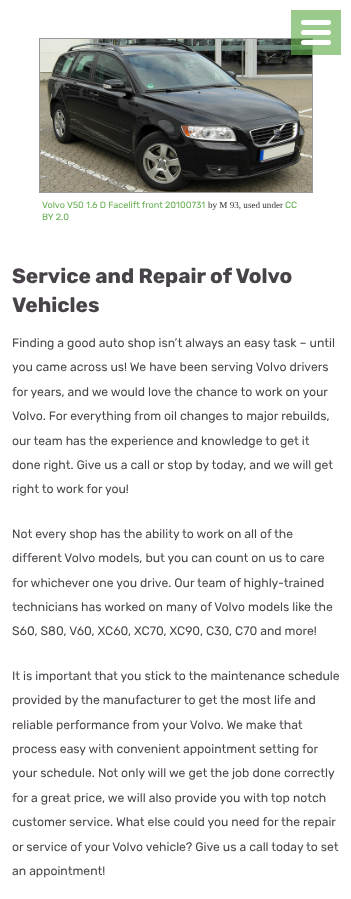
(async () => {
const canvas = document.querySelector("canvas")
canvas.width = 351
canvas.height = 899
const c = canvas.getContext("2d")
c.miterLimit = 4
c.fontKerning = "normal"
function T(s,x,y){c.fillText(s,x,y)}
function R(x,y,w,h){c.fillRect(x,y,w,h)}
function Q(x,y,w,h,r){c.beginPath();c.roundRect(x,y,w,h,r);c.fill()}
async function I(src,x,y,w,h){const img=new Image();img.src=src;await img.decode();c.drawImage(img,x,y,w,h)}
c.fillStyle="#fff"
R(0,0,351,899)
c.strokeStyle="#999"
c.strokeRect(39.5,38.5,273,154)
await I("1.png",40,39,272,153)
c.fillStyle="#64ae4fa6"
R(291,10,50,45)
c.fillStyle="#fff"
Q(301,30,30,5,2.5)
Q(301,20,30,5,2.5)
Q(301,40,30,5,2.5)
c.font="9.1px Rubik"
c.fillStyle="#64ae4f"
T("Volvo V50 1.6 D Facelift front 20100731",42,208)
c.font="9.1px Liberation Serif"
c.fillStyle="#333"
T("by M 93, used under",208,208)
c.font="9.1px Rubik"
c.fillStyle="#64ae4f"
T("CC",285,208)
T("BY 2.0",42,220)
c.font="bold 20.75px Rubik"
c.fillStyle="#484349"
T("Service and Repair of Volvo",12,283)
T("Vehicles",12,312)
c.font="12.25px Rubik"
T("Finding a good auto shop isn’t always an easy task – until",12,347)
T("you came across us! We have been serving Volvo drivers",12,371)
T("for years, and we would love the chance to work on your",12,396)
T("Volvo. For everything from oil changes to major rebuilds,",12,420)
T("our team has the experience and knowledge to get it",12,445)
T("done right. Give us a call or stop by today, and we will get",12,469)
T("right to work for you!",12,493)
T("Not every shop has the ability to work on all of the",12,538)
T("different Volvo models, but you can count on us to care",12,562)
T("for whichever one you drive. Our team of highly-trained",12,587)
T("technicians has worked on many of Volvo models like the",12,611)
T("S60, S80, V60, XC60, XC70, XC90, C30, C70 and more!",12,635)
T("It is important that you stick to the maintenance schedule",12,680)
T("provided by the manufacturer to get the most life and",12,704)
T("reliable performance from your Volvo. We make that",12,729)
T("process easy with convenient appointment setting for",12,753)
T("your schedule. Not only will we get the job done correctly",12,777)
T("for a great price, we will also provide you with top notch",12,802)
T("customer service. What else could you need for the repair",12,826)
T("or service of your Volvo vehicle? Give us a call today to set",12,851)
T("an appointment!",12,875)
})()
